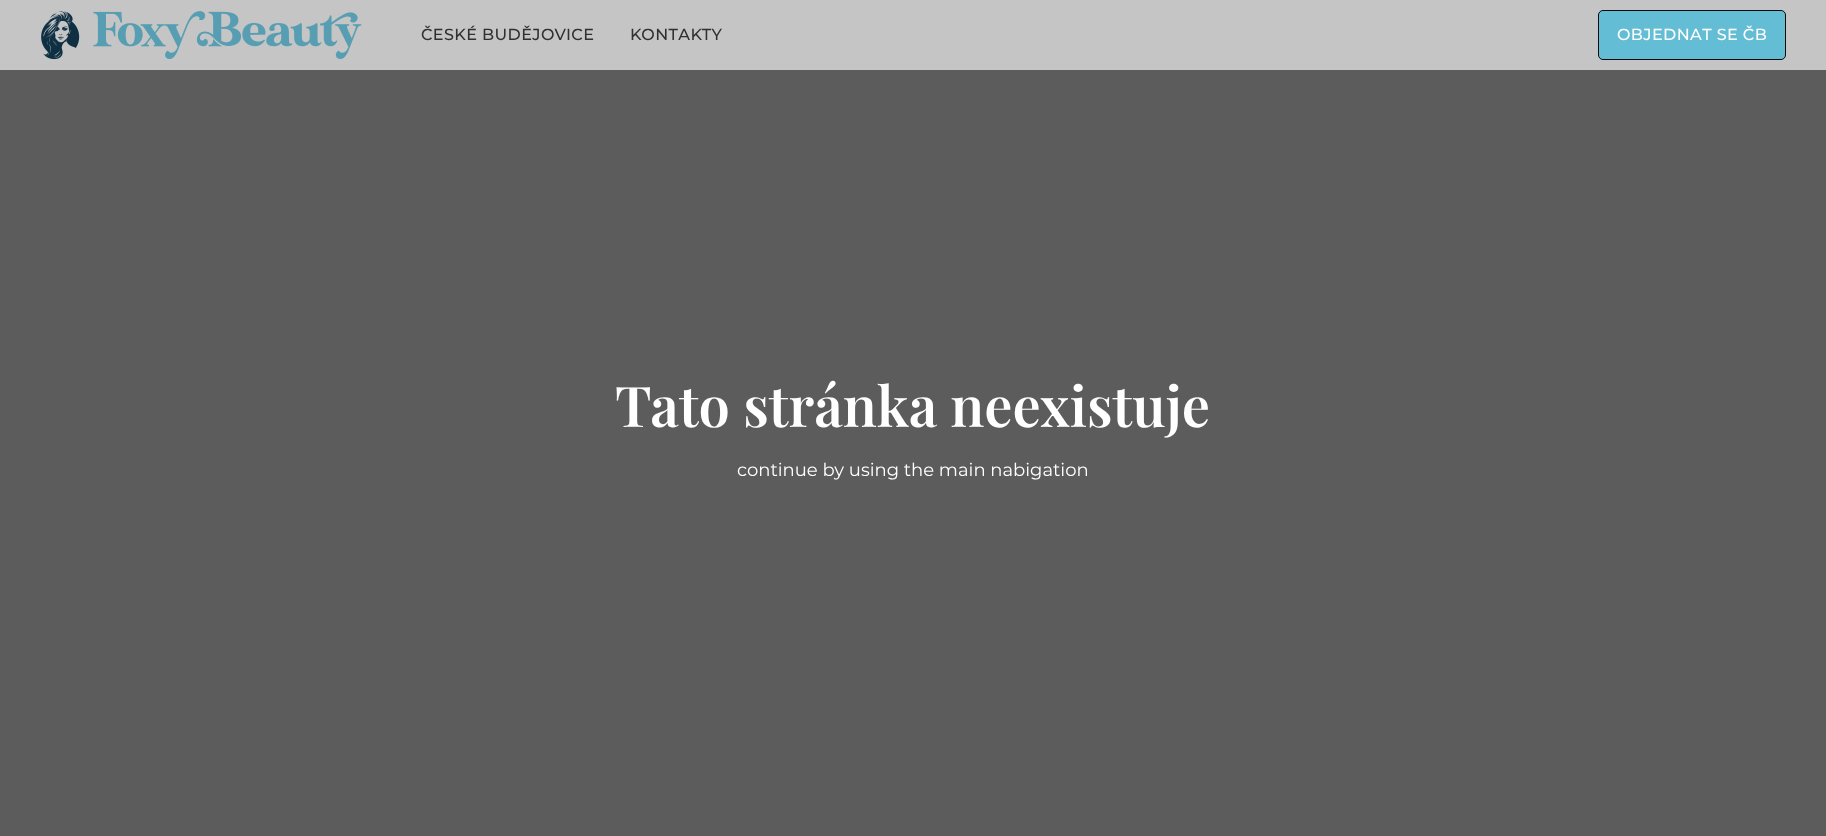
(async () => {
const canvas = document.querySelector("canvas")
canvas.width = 1826
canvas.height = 836
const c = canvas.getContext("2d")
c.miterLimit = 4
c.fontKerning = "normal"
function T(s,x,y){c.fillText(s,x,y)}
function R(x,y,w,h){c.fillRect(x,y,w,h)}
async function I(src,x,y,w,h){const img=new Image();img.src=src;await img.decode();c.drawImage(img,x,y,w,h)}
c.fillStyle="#5c5c5c"
R(0,0,1826,836)
c.fillStyle="#c5c5c5"
R(0,0,1826,70)
await I("1.png",41,11,321,49)
c.letterSpacing="0.4px"
c.font="500 16px Montserrat"
c.fillStyle="#303030"
T("ČESKÉ BUDĚJOVICE",421,40)
T("KONTAKTY",630,40)
c.fillStyle="#63bdd4"
c.beginPath()
c.roundRect(1598.5,10.5,187,49,4.5)
c.fill()
c.strokeStyle="#0b0b0b"
c.stroke()
c.fillStyle="#fff"
T("OBJEDNAT SE ČB",1617,40)
c.letterSpacing="0px"
c.font="600 56px Playfair Display"
T("Tato stránka neexistuje",615,427)
c.font="18px Montserrat"
T("continue by using the main nabigation",737,476)
})()
